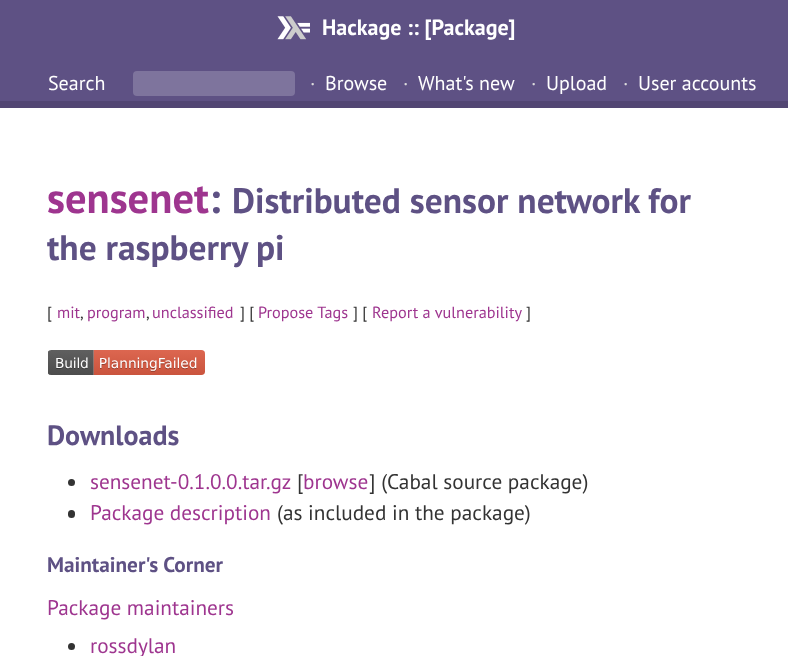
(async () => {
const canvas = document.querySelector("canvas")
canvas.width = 788
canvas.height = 656
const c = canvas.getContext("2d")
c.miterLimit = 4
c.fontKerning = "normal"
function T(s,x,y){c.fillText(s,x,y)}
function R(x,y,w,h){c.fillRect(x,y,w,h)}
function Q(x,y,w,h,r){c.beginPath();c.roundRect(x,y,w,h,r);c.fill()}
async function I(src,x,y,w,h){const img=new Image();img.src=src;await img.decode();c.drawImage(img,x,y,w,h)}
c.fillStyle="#fff"
R(0,0,788,656)
c.fillStyle="#5e5184"
R(0,0,788,101)
c.fillStyle="#524673"
R(0,101,788,7)
await I("1.png",277,16,33,24)
c.font="bold 22px PT Sans"
c.fillStyle="#fff"
T("Hackage :: [Package]",322,35)
c.font="20px PT Sans"
T("Search",48,90)
c.fillStyle="#7e749d"
Q(133,71,162,25,4)
c.fillStyle="#ddd"
T("·",310,90)
c.fillStyle="#fff"
T("Browse",325,90)
c.fillStyle="#ddd"
T("·",403,90)
c.fillStyle="#fff"
T("What's new",418,90)
c.fillStyle="#ddd"
T("·",531,90)
c.fillStyle="#fff"
T("Upload",546,90)
c.fillStyle="#ddd"
T("·",623,90)
c.fillStyle="#fff"
T("User accounts",638,90)
c.font="bold 42.5px PT Sans"
c.fillStyle="#9e358f"
T("sensenet",47,213)
c.fillStyle="#5e5184"
T(":",209,213)
c.font="bold 35.4px PT Sans"
T("Distributed sensor network for",232,213)
T("the raspberry pi",47,260)
c.font="16.25px PT Sans"
c.fillStyle="#333"
T("[",47,318)
c.fillStyle="#9e358f"
T("mit",57,318)
c.fillStyle="#333"
T(",",80,318)
c.fillStyle="#9e358f"
T("program",87,318)
c.fillStyle="#333"
T(",",146,318)
c.fillStyle="#9e358f"
T("unclassified",152,318)
c.fillStyle="#333"
T("] [",240,318)
c.fillStyle="#9e358f"
T("Propose Tags",258,318)
c.fillStyle="#333"
T("] [",353,318)
c.fillStyle="#9e358f"
T("Report a vulnerability",372,318)
c.fillStyle="#333"
T("]",526,318)
await I("2.png",48,350,157,25)
c.font="bold 28px PT Sans"
c.fillStyle="#5e5184"
T("Downloads",47,445)
c.fillStyle="#333"
c.beginPath()
c.arc(71.5,482.5,3.5,0,7)
c.fill()
c.font="21.25px PT Sans"
c.fillStyle="#9e358f"
T("sensenet-0.1.0.0.tar.gz",90,489)
c.fillStyle="#333"
T("[",297,489)
c.fillStyle="#9e358f"
T("browse",303,489)
c.fillStyle="#333"
T("] (Cabal source package)",369,489)
Q(68,510,7,8,3.5)
c.fillStyle="#9e358f"
T("Package description",90,520)
c.fillStyle="#333"
T("(as included in the package)",277,520)
c.font="bold 21.25px PT Sans"
c.fillStyle="#5e5184"
T("Maintainer's Corner",47,572)
c.font="21.25px PT Sans"
c.fillStyle="#9e358f"
T("Package maintainers",47,615)
c.fillStyle="#333"
c.beginPath()
c.arc(71.5,646.5,3.5,0,7)
c.fill()
c.fillStyle="#9e358f"
T("rossdylan",90,653)
})()
